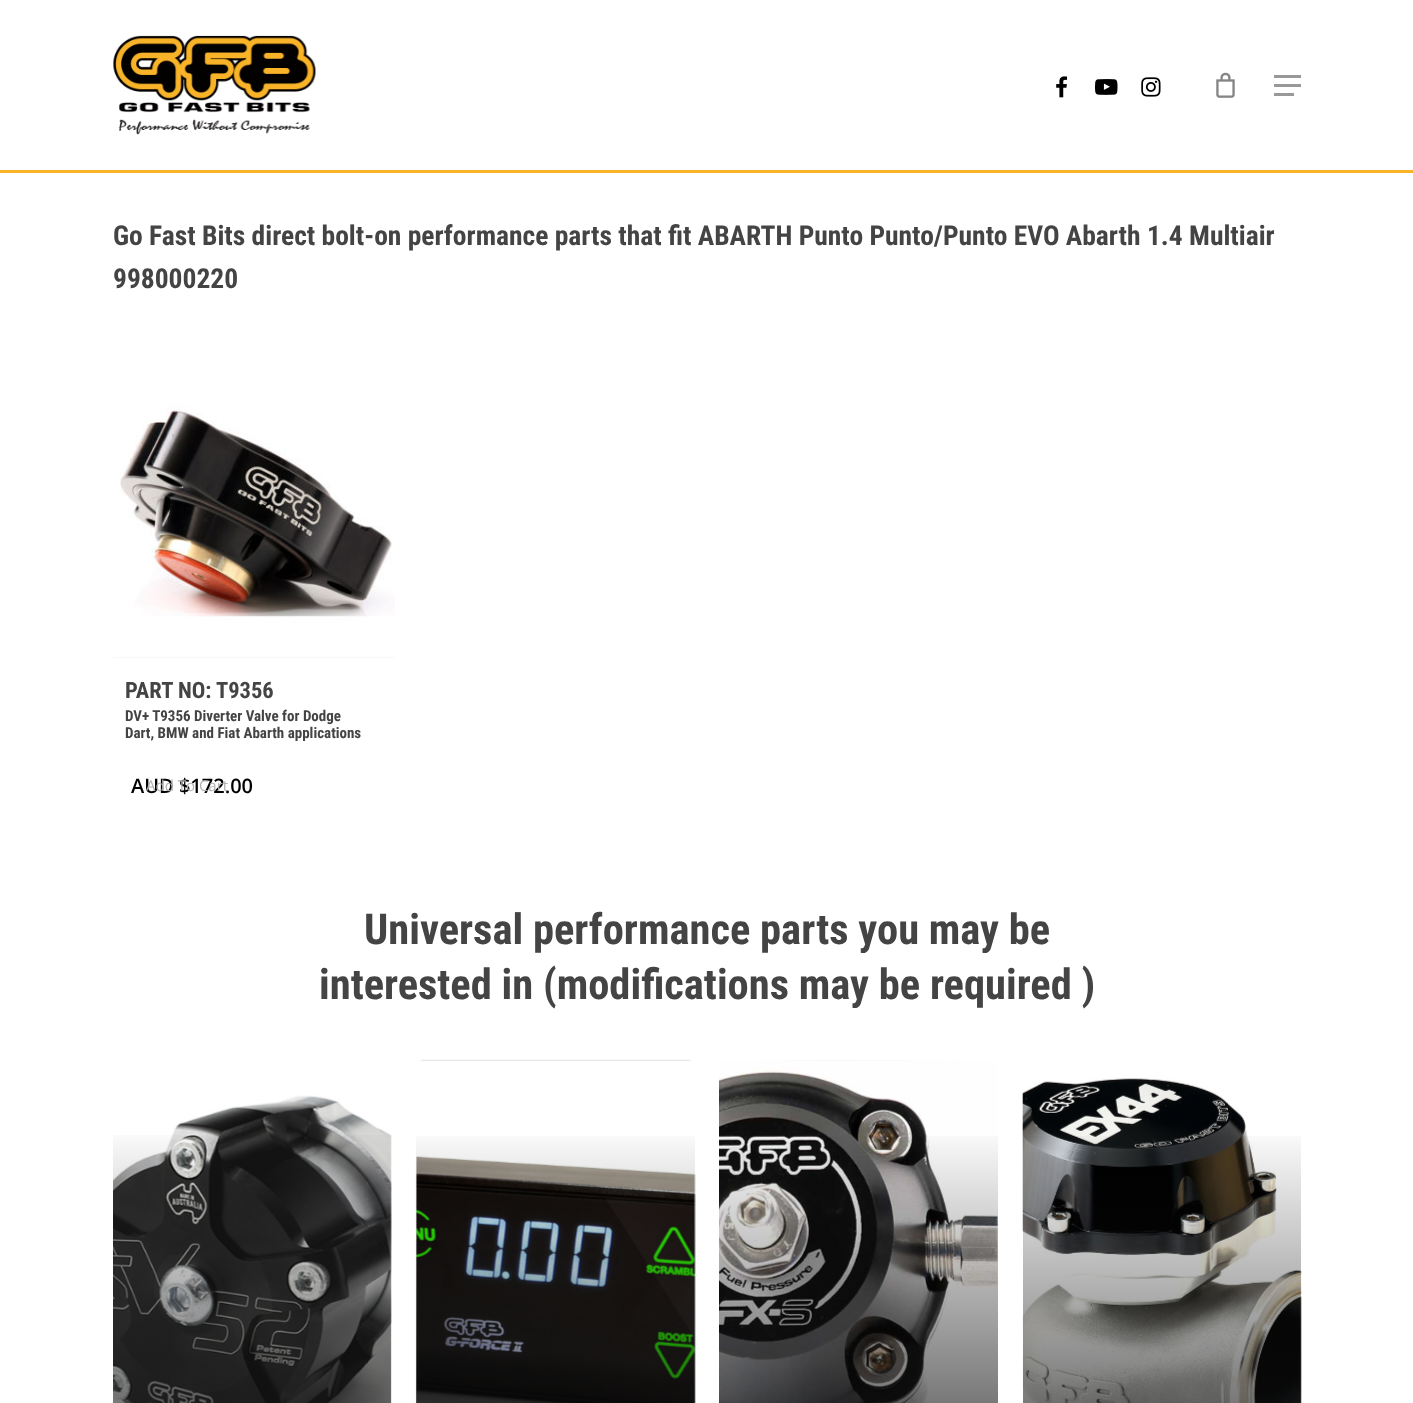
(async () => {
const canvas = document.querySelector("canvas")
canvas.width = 1413
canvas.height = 1403
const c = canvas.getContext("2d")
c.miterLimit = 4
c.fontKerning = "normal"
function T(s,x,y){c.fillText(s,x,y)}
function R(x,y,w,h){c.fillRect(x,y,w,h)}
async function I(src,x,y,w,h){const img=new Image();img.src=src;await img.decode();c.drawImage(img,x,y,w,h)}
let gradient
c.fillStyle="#fff"
R(0,0,1413,1403)
c.fillStyle="#f8b328"
R(0,170,1413,3)
await I("1.png",113,35,203,100)
await I("2.png",1056,76,12,22)
await I("3.png",1095,79,23,16)
await I("4.png",1141,77,20,20)
await I("5.png",1216,72,19,26)
c.fillStyle="#999"
R(1274,75,27,3)
R(1274,93,20,3)
R(1274,84,27,3)
c.font="bold 27.5px Roboto Condensed"
c.fillStyle="#444"
T("Go Fast Bits direct bolt-on performance parts that fit ABARTH Punto Punto/Punto EVO Abarth 1.4 Multiair",113,245)
T("998000220",113,288)
c.fillStyle="#f8f8f8"
c.beginPath()
c.roundRect(113,375,282,283,[8,8,0,0])
c.fill()
await I("6.png",113,375,282,282)
c.font="bold 22.5px Roboto Condensed"
c.fillStyle="#444"
T("PART NO: T9356",125,698)
c.font="bold 15px Roboto Condensed"
T("DV+ T9356 Diverter Valve for Dodge",125,721)
T("Dart, BMW and Fiat Abarth applications",125,738)
c.font="600 20px Open Sans"
c.fillStyle="#000"
T("AUD $172.00",131,793)
c.font="15px Open Sans"
c.fillStyle="#b1b1b1"
T("Add To Cart",146,791)
c.font="bold 42.5px Roboto Condensed"
c.fillStyle="#444"
T("Universal performance parts you may be",364,944)
T("interested in (modifications may be required )",319,999)
await I("7.png",113,1095,279,308)
gradient = c.createLinearGradient(252,1125,253,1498)
gradient.addColorStop(0,"#0f0f0f00")
gradient.addColorStop(1,"#0f0f0fbf")
c.fillStyle = gradient
R(113,1135,278,268)
await I("8.png",415,1059,281,344)
gradient = c.createLinearGradient(556,1125,556,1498)
gradient.addColorStop(0,"#0f0f0f00")
gradient.addColorStop(1,"#0f0f0fbf")
c.fillStyle = gradient
R(416,1136,279,267)
await I("9.png",719,1060,279,343)
gradient = c.createLinearGradient(859,1125,859,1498)
gradient.addColorStop(0,"#0f0f0f00")
gradient.addColorStop(1,"#0f0f0fbf")
c.fillStyle = gradient
R(719,1136,279,267)
await I("10.png",1022,1078,280,325)
gradient = c.createLinearGradient(1162,1125,1162,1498)
gradient.addColorStop(0,"#0f0f0f00")
gradient.addColorStop(1,"#0f0f0fbf")
c.fillStyle = gradient
R(1023,1136,278,267)
})()
